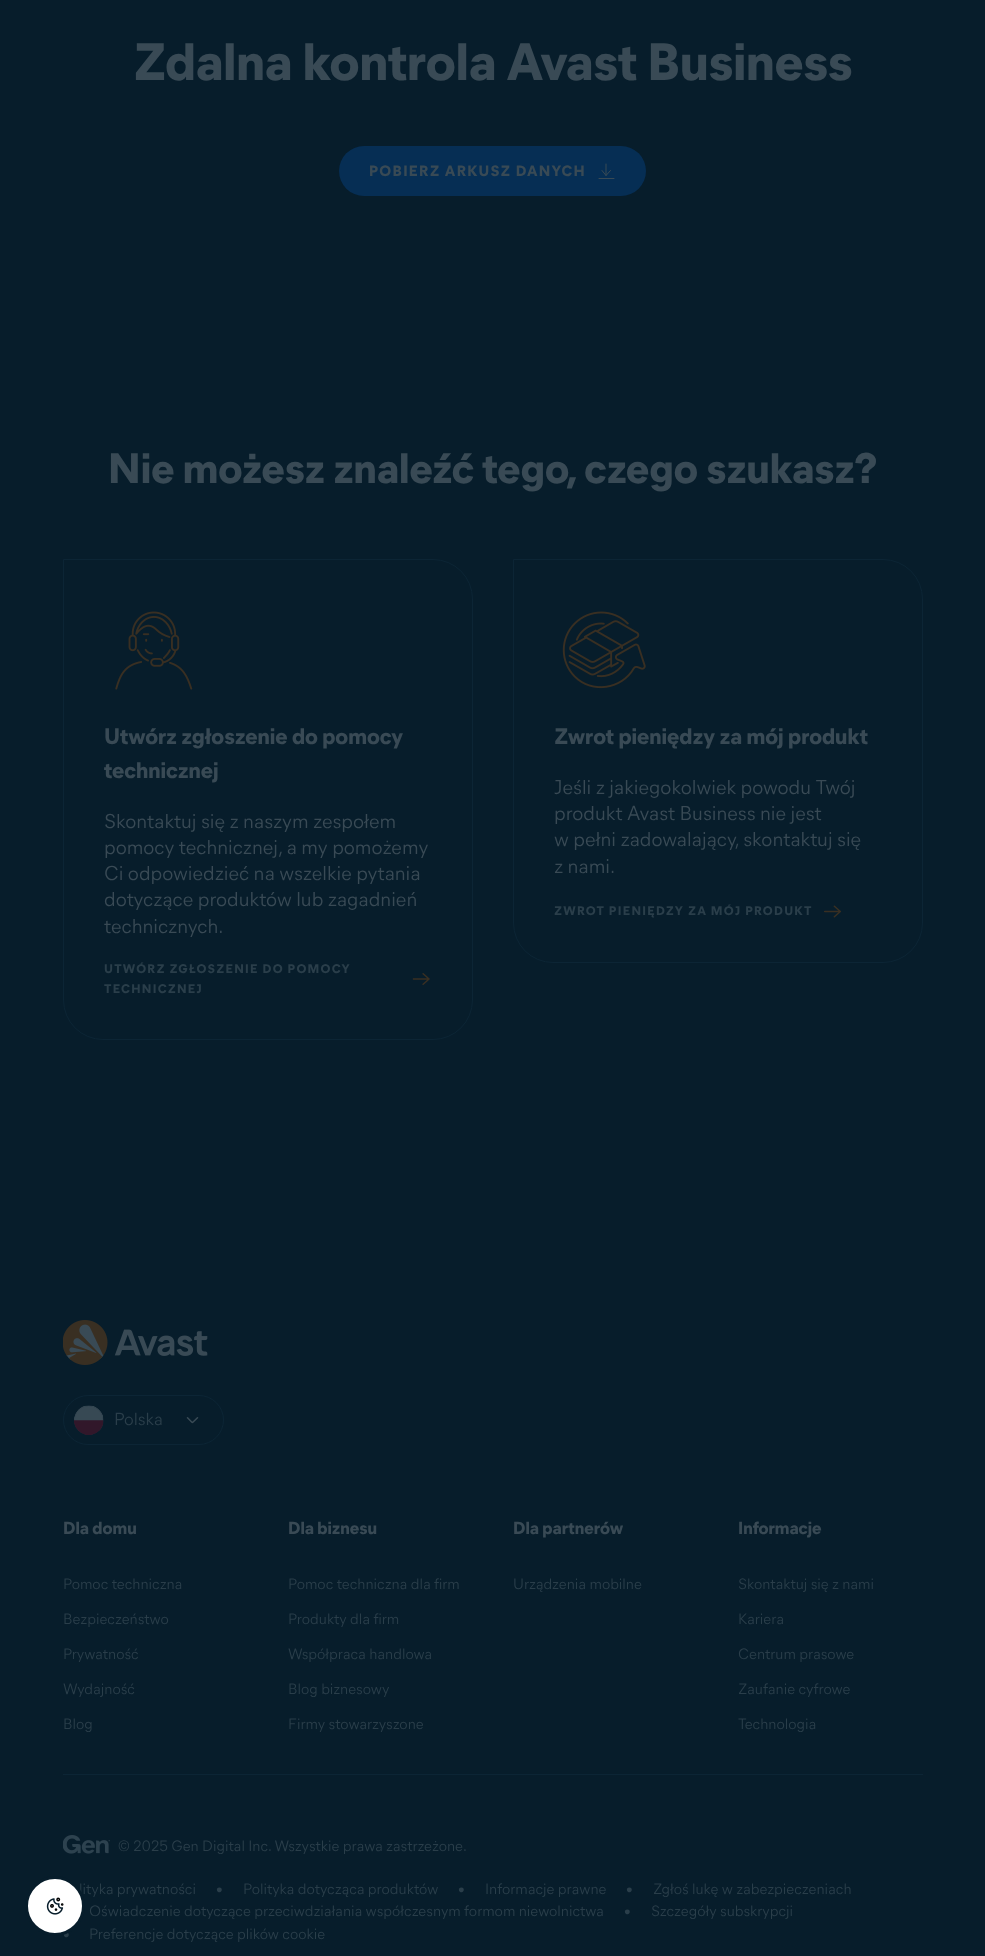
(async () => {
const canvas = document.querySelector("canvas")
canvas.width = 985
canvas.height = 1956
const c = canvas.getContext("2d")
c.miterLimit = 4
c.fontKerning = "normal"
function T(s,x,y){c.fillText(s,x,y)}
function R(x,y,w,h){c.fillRect(x,y,w,h)}
function Q(x,y,w,h,r){c.beginPath();c.roundRect(x,y,w,h,r);c.fill()}
async function I(src,x,y,w,h){const img=new Image();img.src=src;await img.decode();c.drawImage(img,x,y,w,h)}
let path
c.fillStyle="#071d2b"
R(0,0,985,1956)
c.font="bold 52.5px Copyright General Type"
c.fillStyle="#394a55"
T("Zdalna kontrola Avast Business",133,80)
c.fillStyle="#062e54"
Q(339,146,307,50,25)
c.letterSpacing="1.25px"
c.font="bold 15px Copyright General Type"
c.fillStyle="#394a55"
T("POBIERZ ARKUSZ DANYCH",369,176)
path = new Path2D("M606 164v11.5m4.5-5l-4.5 5l-4-5m-3 8h15")
c.strokeStyle="#394a55"
c.lineCap="round"
c.lineJoin="round"
c.stroke(path)
c.letterSpacing="0px"
c.font="bold 42.5px Copyright General Type"
T("Nie możesz znaleźć tego, czego szukasz?",108,483)
c.beginPath()
c.roundRect(63.5,559.5,409,480,[0,39.5,39.5,39.5])
c.strokeStyle="#0c2535"
c.lineJoin="miter"
c.stroke()
await I("1.png",115,611,78,79)
c.font="bold 22.5px Copyright General Type"
T("Utwórz zgłoszenie do pomocy",104,744)
T("technicznej",104,778)
c.font="20px Copyright General Type"
T("Skontaktuj się z naszym zespołem",104,828)
T("pomocy technicznej, a my pomożemy",104,854)
T("Ci odpowiedzieć na wszelkie pytania",104,880)
T("dotyczące produktów lub zagadnień",104,906)
T("technicznych.",104,933)
c.letterSpacing="1.25px"
c.font="bold 12.5px Copyright General Type"
c.fillStyle="#2a3e4a"
T("UTWÓRZ ZGŁOSZENIE DO POMOCY",104,973)
T("TECHNICZNEJ",104,993)
await I("2.png",412,973,18,12)
c.beginPath()
c.roundRect(513.5,559.5,409,403,[0,39.5,39.5,39.5])
c.stroke()
await I("3.png",562,611,84,78)
c.letterSpacing="0px"
c.font="bold 22.5px Copyright General Type"
c.fillStyle="#394a55"
T("Zwrot pieniędzy za mój produkt",554,744)
c.font="20px Copyright General Type"
T("Jeśli z jakiegokolwiek powodu Twój",554,794)
T("produkt Avast Business nie jest",554,820)
T("w pełni zadowalający, skontaktuj się",554,846)
T("z nami.",554,873)
c.letterSpacing="1.25px"
c.font="bold 12.5px Copyright General Type"
c.fillStyle="#2a3e4a"
T("ZWROT PIENIĘDZY ZA MÓJ PRODUKT",554,915)
await I("4.png",824,905,18,13)
await I("5.png",63,1320,145,45)
c.beginPath()
c.roundRect(63.5,1395.5,160,49,24.5)
c.stroke()
await I("6.png",74,1405,30,30)
c.letterSpacing="0px"
c.font="17.5px Copyright General Type"
T("Polska",114,1425)
await I("7.png",186,1417,13,7)
c.font="bold 17.5px Copyright General Type"
c.fillStyle="#394a55"
T("Dla domu",63,1534)
c.font="15px Copyright General Type"
c.fillStyle="#2a3e4a"
T("Pomoc techniczna",63,1589)
T("Bezpieczeństwo",63,1624)
T("Prywatność",63,1659)
T("Wydajność",63,1694)
T("Blog",63,1729)
c.font="bold 17.5px Copyright General Type"
c.fillStyle="#394a55"
T("Dla biznesu",288,1534)
c.font="15px Copyright General Type"
c.fillStyle="#2a3e4a"
T("Pomoc techniczna dla firm",288,1589)
T("Produkty dla firm",288,1624)
T("Współpraca handlowa",288,1659)
T("Blog biznesowy",288,1694)
T("Firmy stowarzyszone",288,1729)
c.font="bold 17.5px Copyright General Type"
c.fillStyle="#394a55"
T("Dla partnerów",513,1534)
c.font="15px Copyright General Type"
c.fillStyle="#2a3e4a"
T("Urządzenia mobilne",513,1589)
c.font="bold 17.5px Copyright General Type"
c.fillStyle="#394a55"
T("Informacje",738,1534)
c.font="15px Copyright General Type"
c.fillStyle="#2a3e4a"
T("Skontaktuj się z nami",738,1589)
T("Kariera",738,1624)
T("Centrum prasowe",738,1659)
T("Zaufanie cyfrowe",738,1694)
T("Technologia",738,1729)
c.fillStyle="#0c2535"
R(63,1774,860,1)
c.fillStyle="#2a3e4a"
T("lityka prywatności",79,1894)
T("•",63,1939)
c.fillStyle="#fff"
c.beginPath()
c.arc(55,1906,28.5,0,7)
c.fill()
c.strokeStyle="#071d2b"
c.lineWidth=3
c.stroke()
await I("8.png",46,1897,18,18)
await I("9.png",63,1835,47,19)
c.fillStyle="#2a3e4a"
T("© 2025 Gen Digital Inc. Wszystkie prawa zastrzeżone.",118,1851)
T("•",216,1894)
T("Polityka dotycząca produktów",243,1894)
T("•",458,1894)
T("Informacje prawne",485,1894)
T("•",626,1894)
T("Zgłoś lukę w zabezpieczeniach",653,1894)
T("Oświadczenie dotyczące przeciwdziałania współczesnym formom niewolnictwa",89,1916)
T("•",624,1916)
T("Szczegóły subskrypcji",651,1916)
T("Preferencje dotyczące plików cookie",89,1939)
})()
